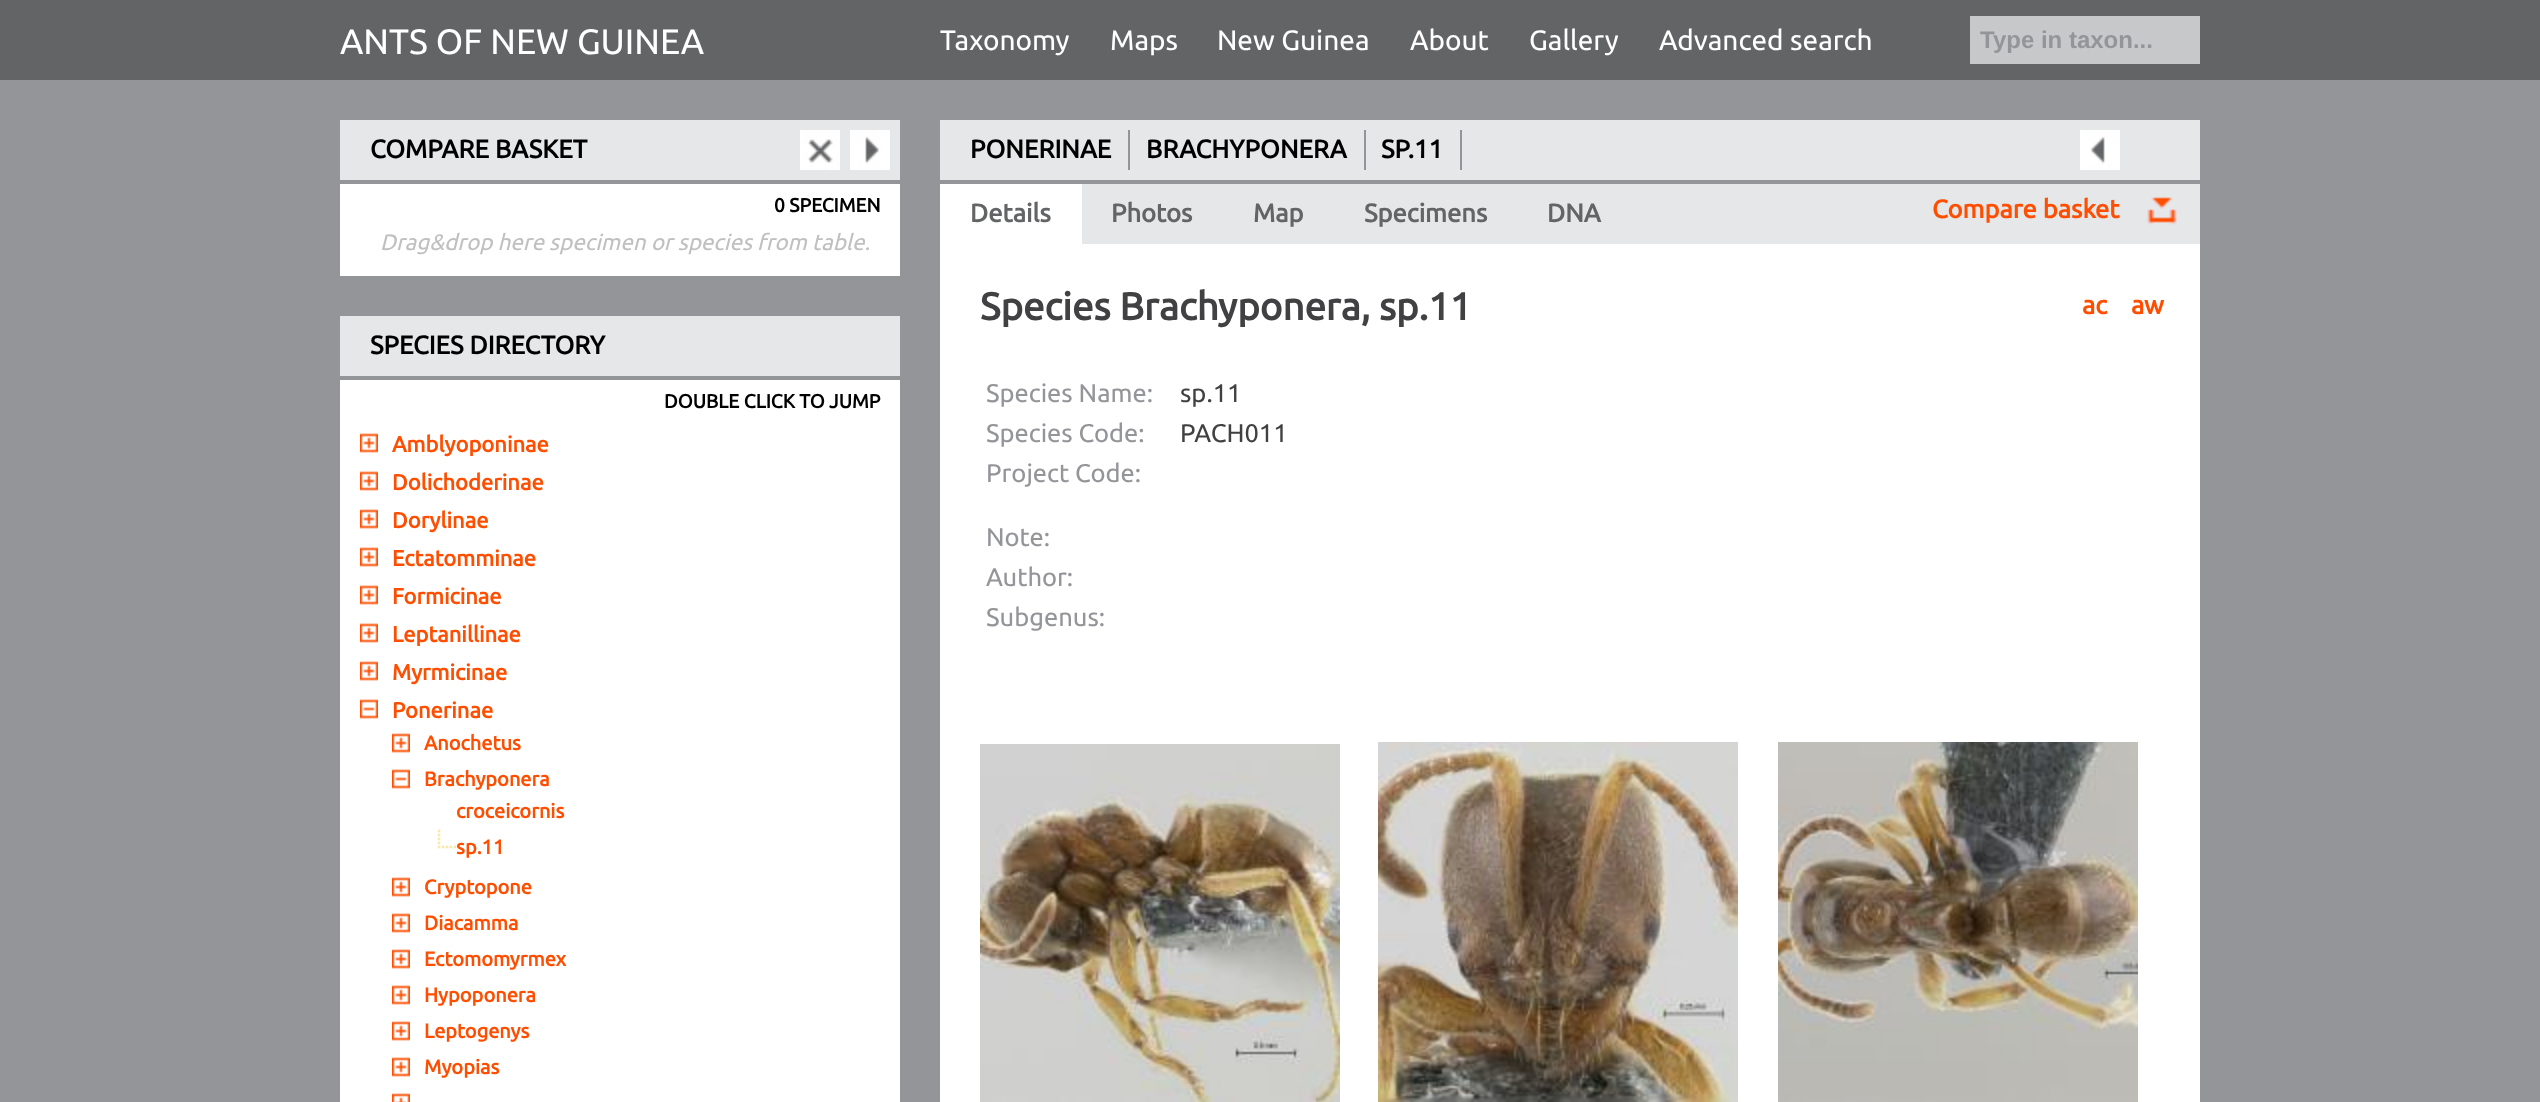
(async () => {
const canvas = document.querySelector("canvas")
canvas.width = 2540
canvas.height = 1102
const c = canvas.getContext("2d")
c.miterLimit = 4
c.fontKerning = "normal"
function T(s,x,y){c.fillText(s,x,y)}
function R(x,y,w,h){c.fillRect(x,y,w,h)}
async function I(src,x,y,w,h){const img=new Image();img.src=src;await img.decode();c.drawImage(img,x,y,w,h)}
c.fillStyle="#949599"
R(0,0,2540,1102)
c.fillStyle="#636466"
R(0,0,2540,80)
c.font="35.25px Ubuntu"
c.fillStyle="#fff"
T("ANTS OF NEW GUINEA",340,54)
c.font="28px Ubuntu"
T("Taxonomy",940,50)
T("Maps",1110,50)
T("New Guinea",1217,50)
T("About",1410,50)
T("Gallery",1529,50)
T("Advanced search",1659,50)
c.fillStyle="#c7c8ca"
R(1970,16,230,48)
c.font="bold 24px Liberation Sans"
c.fillStyle="#949599"
T("Type in taxon...",1980,48)
c.fillStyle="#e6e7e9"
R(340,120,560,60)
c.font="bold 25.5px Ubuntu"
c.fillStyle="#000"
T("COMPARE BASKET",370,158)
await I("1.png",800,130,40,40)
await I("2.png",850,130,40,40)
c.fillStyle="#fff"
R(340,184,560,92)
c.font="bold 19.25px Ubuntu"
c.fillStyle="#000"
T("0 SPECIMEN",774,212)
c.font="italic 22.4px Ubuntu"
c.fillStyle="#c0c0c0"
T("Drag&drop here specimen or species from table.",380,250)
c.fillStyle="#e6e7e9"
R(340,316,560,60)
c.font="bold 25.5px Ubuntu"
c.fillStyle="#000"
T("SPECIES DIRECTORY",370,354)
c.fillStyle="#fff"
R(340,380,560,722)
c.font="bold 19.25px Ubuntu"
c.fillStyle="#000"
T("DOUBLE CLICK TO JUMP",664,408)
await I("3.png",360,433,18,20)
c.font="bold 22px Ubuntu"
c.fillStyle="#ff4e00"
T("Amblyoponinae",392,452)
await I("3.png",360,471,18,20)
T("Dolichoderinae",392,490)
await I("3.png",360,509,18,20)
T("Dorylinae",392,528)
await I("3.png",360,547,18,20)
T("Ectatomminae",392,566)
await I("3.png",360,585,18,20)
T("Formicinae",392,604)
await I("3.png",360,623,18,20)
T("Leptanillinae",392,642)
await I("3.png",360,661,18,20)
T("Myrmicinae",392,680)
await I("4.png",360,699,18,20)
T("Ponerinae",392,718)
await I("3.png",392,733,18,20)
c.font="bold 20px Ubuntu"
T("Anochetus",424,750)
await I("4.png",392,769,18,20)
T("Brachyponera",424,786)
T("croceicornis",456,818)
await I("5.png",437,829,19,20)
T("sp.11",456,854)
await I("3.png",392,877,18,20)
T("Cryptopone",424,894)
await I("3.png",392,913,18,20)
T("Diacamma",424,930)
await I("3.png",392,949,18,20)
T("Ectomomyrmex",424,966)
await I("3.png",392,985,18,20)
T("Hypoponera",424,1002)
await I("3.png",392,1021,18,20)
T("Leptogenys",424,1038)
await I("3.png",392,1057,18,20)
T("Myopias",424,1074)
await I("6.png",392,1093,18,9)
c.fillStyle="#fff"
R(940,244,1260,858)
c.fillStyle="#e6e7e9"
R(940,120,1260,60)
c.fillStyle="#939498"
R(1128,130,2,40)
c.font="bold 25.5px Ubuntu"
c.fillStyle="#000"
T("PONERINAE",970,158)
c.fillStyle="#939498"
R(1364,130,2,40)
c.fillStyle="#000"
T("BRACHYPONERA",1146,158)
c.fillStyle="#939498"
R(1460,130,2,40)
c.fillStyle="#000"
T("SP.11",1381,158)
await I("7.png",2080,130,40,40)
c.fillStyle="#e6e7e9"
R(1082,184,1118,60)
c.fillStyle="#fff"
R(940,184,142,60)
c.fillStyle="#636466"
T("Details",970,222)
T("Photos",1111,222)
T("Map",1253,222)
T("Specimens",1364,222)
T("DNA",1547,222)
await I("8.png",2147,197,30,28)
c.fillStyle="#ff4e00"
T("Compare basket",1932,218)
c.font="bold 38.4px Ubuntu"
c.fillStyle="#414042"
T("Species Brachyponera, sp.11",980,320)
c.font="bold 25.5px Ubuntu"
c.fillStyle="#ff4e00"
T("ac",2082,314)
T("aw",2131,314)
c.font="25.5px Ubuntu"
c.fillStyle="#949599"
T("Species Name:",986,402)
c.fillStyle="#414042"
T("sp.11",1180,402)
c.fillStyle="#949599"
T("Species Code:",986,442)
c.fillStyle="#414042"
T("PACH011",1180,442)
c.fillStyle="#949599"
T("Project Code:",986,482)
T("Note:",986,546)
T("Author:",986,586)
T("Subgenus:",986,626)
await I("9.png",980,744,360,358)
await I("10.png",1378,742,360,360)
await I("11.png",1778,742,360,360)
})()
